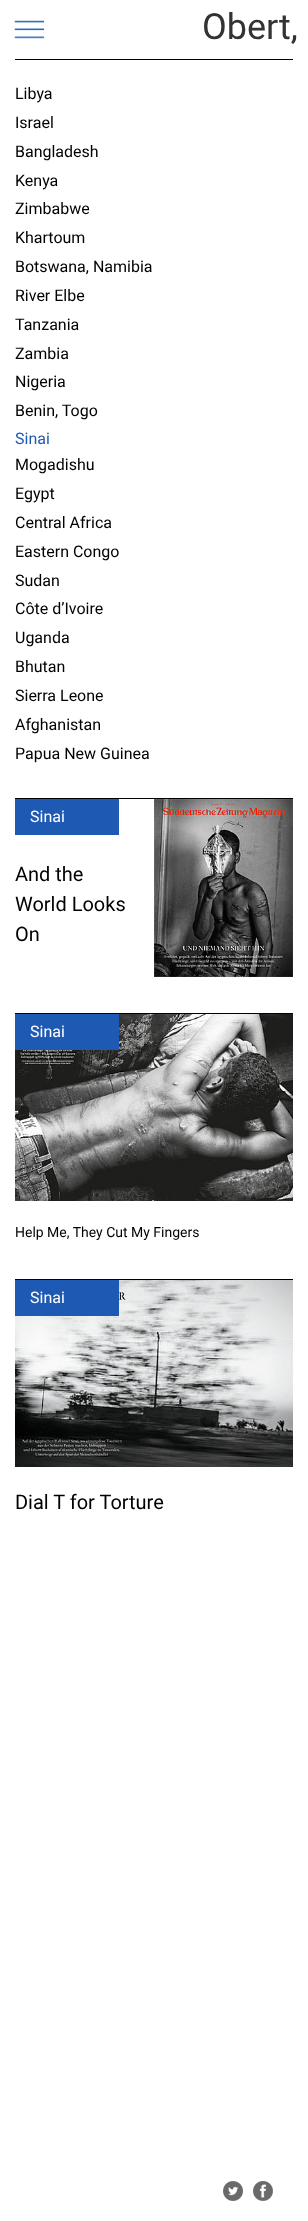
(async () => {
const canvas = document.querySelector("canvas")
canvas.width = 308
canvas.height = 2221
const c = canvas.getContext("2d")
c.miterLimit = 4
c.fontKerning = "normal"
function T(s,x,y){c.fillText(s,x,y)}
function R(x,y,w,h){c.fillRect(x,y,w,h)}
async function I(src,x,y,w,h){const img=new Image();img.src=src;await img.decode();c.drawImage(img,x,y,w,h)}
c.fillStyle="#fff"
R(0,0,308,2221)
await I("1.png",14,20,31,19)
c.font="36px Roboto"
c.fillStyle="#333"
T("Obert,",202,39)
c.fillStyle="#000"
R(15,59,278,1)
c.font="16px Roboto"
T("Libya",15,99)
T("Israel",15,128)
T("Bangladesh",15,157)
T("Kenya",15,186)
T("Zimbabwe",15,214)
T("Khartoum",15,243)
T("Botswana, Namibia",15,272)
T("River Elbe",15,301)
T("Tanzania",15,330)
T("Zambia",15,359)
T("Nigeria",15,387)
T("Benin, Togo",15,416)
c.fillStyle="#1e5ab4"
T("Sinai",15,444)
c.fillStyle="#000"
T("Mogadishu",15,470)
T("Egypt",15,499)
T("Central Africa",15,528)
T("Eastern Congo",15,557)
T("Sudan",15,586)
T("Côte d’Ivoire",15,614)
T("Uganda",15,643)
T("Bhutan",15,672)
T("Sierra Leone",15,701)
T("Afghanistan",15,730)
T("Papua New Guinea",15,759)
R(15,798,278,1)
c.fillStyle="#1e5ab4"
R(15,799,104,36)
c.fillStyle="#fff"
T("Sinai",30,822)
await I("2.png",154,799,139,178)
c.font="20px Roboto"
c.fillStyle="#000"
T("And the",15,881)
T("World Looks",15,911)
T("On",15,941)
R(15,1013,278,1)
await I("3.png",15,1014,278,187)
c.fillStyle="#1e5ab4"
R(15,1014,104,36)
c.font="16px Roboto"
c.fillStyle="#fff"
T("Sinai",30,1037)
c.font="14px Roboto"
c.fillStyle="#000"
T("Help Me, They Cut My Fingers",15,1237)
R(15,1279,278,1)
await I("4.png",15,1280,278,187)
c.fillStyle="#1e5ab4"
R(15,1280,104,36)
c.font="16px Roboto"
c.fillStyle="#fff"
T("Sinai",30,1303)
c.font="20px Roboto"
c.fillStyle="#000"
T("Dial T for Torture",15,1509)
await I("5.png",223,2181,20,20)
await I("6.png",253,2181,20,20)
})()
